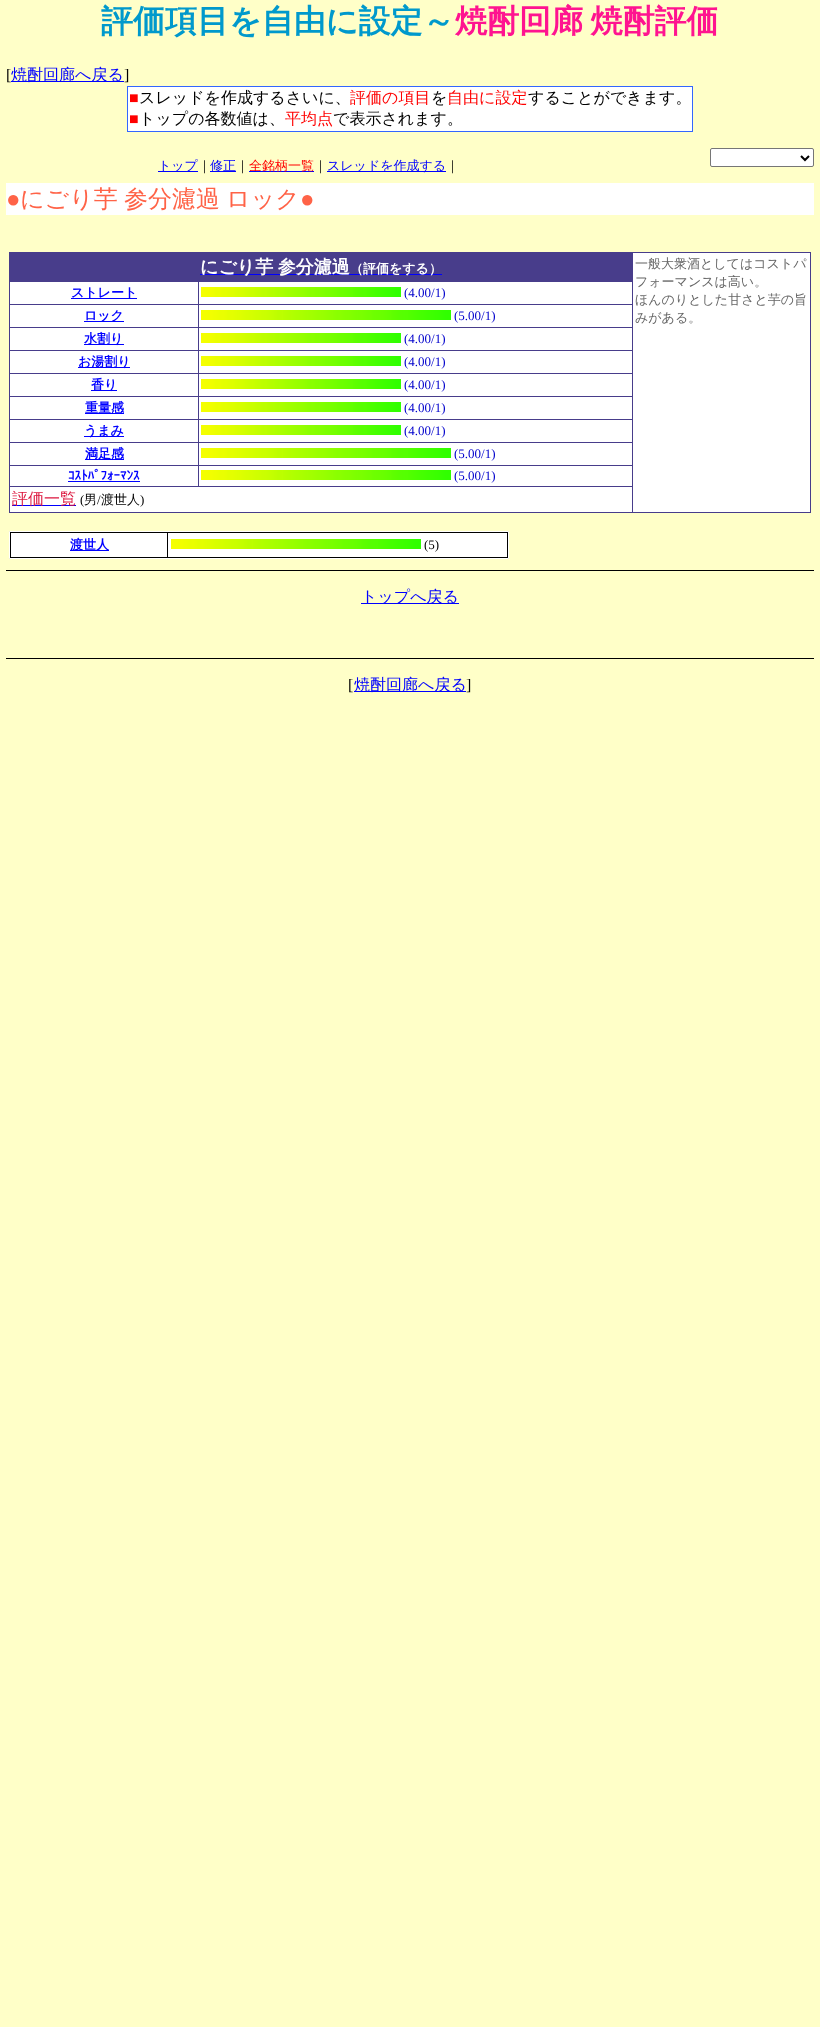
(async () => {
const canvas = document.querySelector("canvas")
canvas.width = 820
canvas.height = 2027
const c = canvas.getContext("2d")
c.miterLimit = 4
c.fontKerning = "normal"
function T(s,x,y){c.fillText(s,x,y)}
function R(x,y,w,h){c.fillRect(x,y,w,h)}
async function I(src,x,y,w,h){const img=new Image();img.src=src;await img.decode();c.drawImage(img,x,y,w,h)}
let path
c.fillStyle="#ffffc8"
R(0,0,820,2027)
c.font="bold 32px WenQuanYi Zen Hei"
c.fillStyle="#09c"
T("評価項目を自由に設定～",101,32)
c.wordSpacing="-2px"
c.fillStyle="#ff1490"
T("焼酎回廊 焼酎評価",455,32)
c.wordSpacing="0px"
c.font="16px Liberation Serif"
c.fillStyle="#000"
T("[",6,80)
c.fillStyle="#00f"
R(11,81,113,1)
c.font="500 16px WenQuanYi Zen Hei"
T("焼酎回廊へ戻る",11,80)
c.font="16px Liberation Serif"
c.fillStyle="#000"
T("]",124,80)
c.fillStyle="#36f"
R(127,86,566,46)
c.fillStyle="#fff"
R(128,87,564,44)
c.fillStyle="#f00"
T("■",129,103)
c.font="500 16px WenQuanYi Zen Hei"
c.fillStyle="#000"
T("スレッドを作成するさいに、",139,103)
c.fillStyle="#f00"
T("評価の項目",350,103)
c.fillStyle="#000"
T("を",431,103)
c.fillStyle="#f00"
T("自由に設定",447,103)
c.fillStyle="#000"
T("することができます。",528,103)
c.font="16px Liberation Serif"
c.fillStyle="#f00"
T("■",129,124)
c.font="500 16px WenQuanYi Zen Hei"
c.fillStyle="#000"
T("トップの各数値は、",139,124)
c.fillStyle="#f00"
T("平均点",285,124)
c.fillStyle="#000"
T("で表示されます。",333,124)
c.fillStyle="#00f"
R(158,171,40,1)
c.font="500 13px WenQuanYi Zen Hei"
T("トップ",158,170)
c.fillStyle="#000"
T("｜",198,170)
c.fillStyle="#00f"
R(210,171,26,1)
T("修正",210,170)
c.fillStyle="#000"
T("｜",236,170)
c.fillStyle="#00f"
R(249,171,65,1)
c.fillStyle="#f00"
T("全銘柄一覧",249,170)
c.fillStyle="#000"
T("｜",314,170)
c.fillStyle="#00f"
R(327,171,119,1)
T("スレッドを作成する",327,170)
c.fillStyle="#000"
T("｜",446,170)
c.fillStyle="#fff"
c.beginPath()
c.roundRect(710.5,148.5,103,18,1.5)
c.fill()
c.strokeStyle="#767676"
c.stroke()
path = new Path2D("M801 156l4 4l4-4")
c.strokeStyle="#000"
c.lineWidth=2
c.stroke(path)
R(6,183,808,32)
c.font="24px Liberation Serif"
c.fillStyle="#ff6347"
T("●",6,207)
c.wordSpacing="-1px"
c.font="500 24px WenQuanYi Zen Hei"
T("にごり芋 参分濾過 ロック",20,207)
c.wordSpacing="0px"
c.font="24px Liberation Serif"
T("●",300,207)
c.fillStyle="#483d8b"
R(9,252,802,261)
c.fillStyle="#00f"
R(200,274,242,1)
c.wordSpacing="-1px"
c.font="bold 18px WenQuanYi Zen Hei"
c.fillStyle="#fff"
T("にごり芋 参分濾過",200,273)
c.wordSpacing="0px"
c.font="bold 13px WenQuanYi Zen Hei"
T("（評価をする）",350,273)
R(633,253,177,259)
c.font="500 13px WenQuanYi Zen Hei"
c.fillStyle="#666"
T("一般大衆酒としてはコストパ",635,268)
T("フォーマンスは高い。",635,286)
T("ほんのりとした甘さと芋の旨",635,304)
T("みがある。",635,322)
c.fillStyle="#fff"
R(10,282,188,22)
c.fillStyle="#00f"
R(71,298,66,1)
c.font="bold 13px WenQuanYi Zen Hei"
T("ストレート",71,297)
c.fillStyle="#fff"
R(199,282,433,22)
await I("1.png",201,287,200,10)
c.font="13px Liberation Serif"
c.fillStyle="#00c"
T("(4.00/1)",404,297)
c.fillStyle="#fff"
R(10,305,188,22)
c.fillStyle="#00f"
R(84,321,40,1)
c.font="bold 13px WenQuanYi Zen Hei"
T("ロック",84,320)
c.fillStyle="#fff"
R(199,305,433,22)
await I("2.png",201,310,250,10)
c.font="13px Liberation Serif"
c.fillStyle="#00c"
T("(5.00/1)",454,320)
c.fillStyle="#fff"
R(10,328,188,22)
c.fillStyle="#00f"
R(84,344,40,1)
c.font="bold 13px WenQuanYi Zen Hei"
T("水割り",84,343)
c.fillStyle="#fff"
R(199,328,433,22)
await I("1.png",201,333,200,10)
c.font="13px Liberation Serif"
c.fillStyle="#00c"
T("(4.00/1)",404,343)
c.fillStyle="#fff"
R(10,351,188,22)
c.fillStyle="#00f"
R(78,367,52,1)
c.font="bold 13px WenQuanYi Zen Hei"
T("お湯割り",78,366)
c.fillStyle="#fff"
R(199,351,433,22)
await I("1.png",201,356,200,10)
c.font="13px Liberation Serif"
c.fillStyle="#00c"
T("(4.00/1)",404,366)
c.fillStyle="#fff"
R(10,374,188,22)
c.fillStyle="#00f"
R(91,390,26,1)
c.font="bold 13px WenQuanYi Zen Hei"
T("香り",91,389)
c.fillStyle="#fff"
R(199,374,433,22)
await I("1.png",201,379,200,10)
c.font="13px Liberation Serif"
c.fillStyle="#00c"
T("(4.00/1)",404,389)
c.fillStyle="#fff"
R(10,397,188,22)
c.fillStyle="#00f"
R(85,413,39,1)
c.font="bold 13px WenQuanYi Zen Hei"
T("重量感",85,412)
c.fillStyle="#fff"
R(199,397,433,22)
await I("1.png",201,402,200,10)
c.font="13px Liberation Serif"
c.fillStyle="#00c"
T("(4.00/1)",404,412)
c.fillStyle="#fff"
R(10,420,188,22)
c.fillStyle="#00f"
R(84,436,40,1)
c.font="bold 13px WenQuanYi Zen Hei"
T("うまみ",84,435)
c.fillStyle="#fff"
R(199,420,433,22)
await I("1.png",201,425,200,10)
c.font="13px Liberation Serif"
c.fillStyle="#00c"
T("(4.00/1)",404,435)
c.fillStyle="#fff"
R(10,443,188,22)
c.fillStyle="#00f"
R(85,459,39,1)
c.font="bold 13px WenQuanYi Zen Hei"
T("満足感",85,458)
c.fillStyle="#fff"
R(199,443,433,22)
await I("2.png",201,448,250,10)
c.font="13px Liberation Serif"
c.fillStyle="#00c"
T("(5.00/1)",454,458)
c.fillStyle="#fff"
R(10,466,188,20)
c.font="bold 13px IPAGothic"
c.fillStyle="#00f"
T("ｺｽﾄﾊﾟﾌｫｰﾏﾝｽ",68,480)
R(68,481,72,1)
c.fillStyle="#fff"
R(199,466,433,20)
await I("2.png",201,470,250,10)
c.font="13px Liberation Serif"
c.fillStyle="#00c"
T("(5.00/1)",454,480)
c.fillStyle="#fff"
R(10,487,622,25)
c.fillStyle="#00f"
R(12,505,64,1)
c.font="500 16px WenQuanYi Zen Hei"
c.fillStyle="#dc143c"
T("評価一覧",12,504)
c.font="13px Liberation Serif"
c.fillStyle="#000"
T("(",80,504)
c.font="500 13px WenQuanYi Zen Hei"
T("男 渡世人",84,504)
c.font="13px Liberation Serif"
T("/",97,504)
T(")",140,504)
c.beginPath()
c.rect(9.5,531.5,499,27)
c.fill()
c.strokeStyle="#fff"
c.lineWidth=1
c.stroke()
c.fillStyle="#fff"
R(11,533,156,24)
c.fillStyle="#00f"
R(70,550,39,1)
c.font="bold 13px WenQuanYi Zen Hei"
T("渡世人",70,549)
c.fillStyle="#fff"
R(168,533,339,24)
await I("2.png",171,539,250,10)
c.font="13px Liberation Serif"
c.fillStyle="#000"
T("(5)",424,549)
R(6,570,808,1)
c.fillStyle="#00f"
R(361,603,98,1)
c.font="500 16px WenQuanYi Zen Hei"
T("トップへ戻る",361,602)
c.fillStyle="#000"
R(6,658,808,1)
c.font="16px Liberation Serif"
T("[",348,690)
c.fillStyle="#00f"
R(354,691,112,1)
c.font="500 16px WenQuanYi Zen Hei"
T("焼酎回廊へ戻る",354,690)
c.font="16px Liberation Serif"
c.fillStyle="#000"
T("]",466,690)
})()
